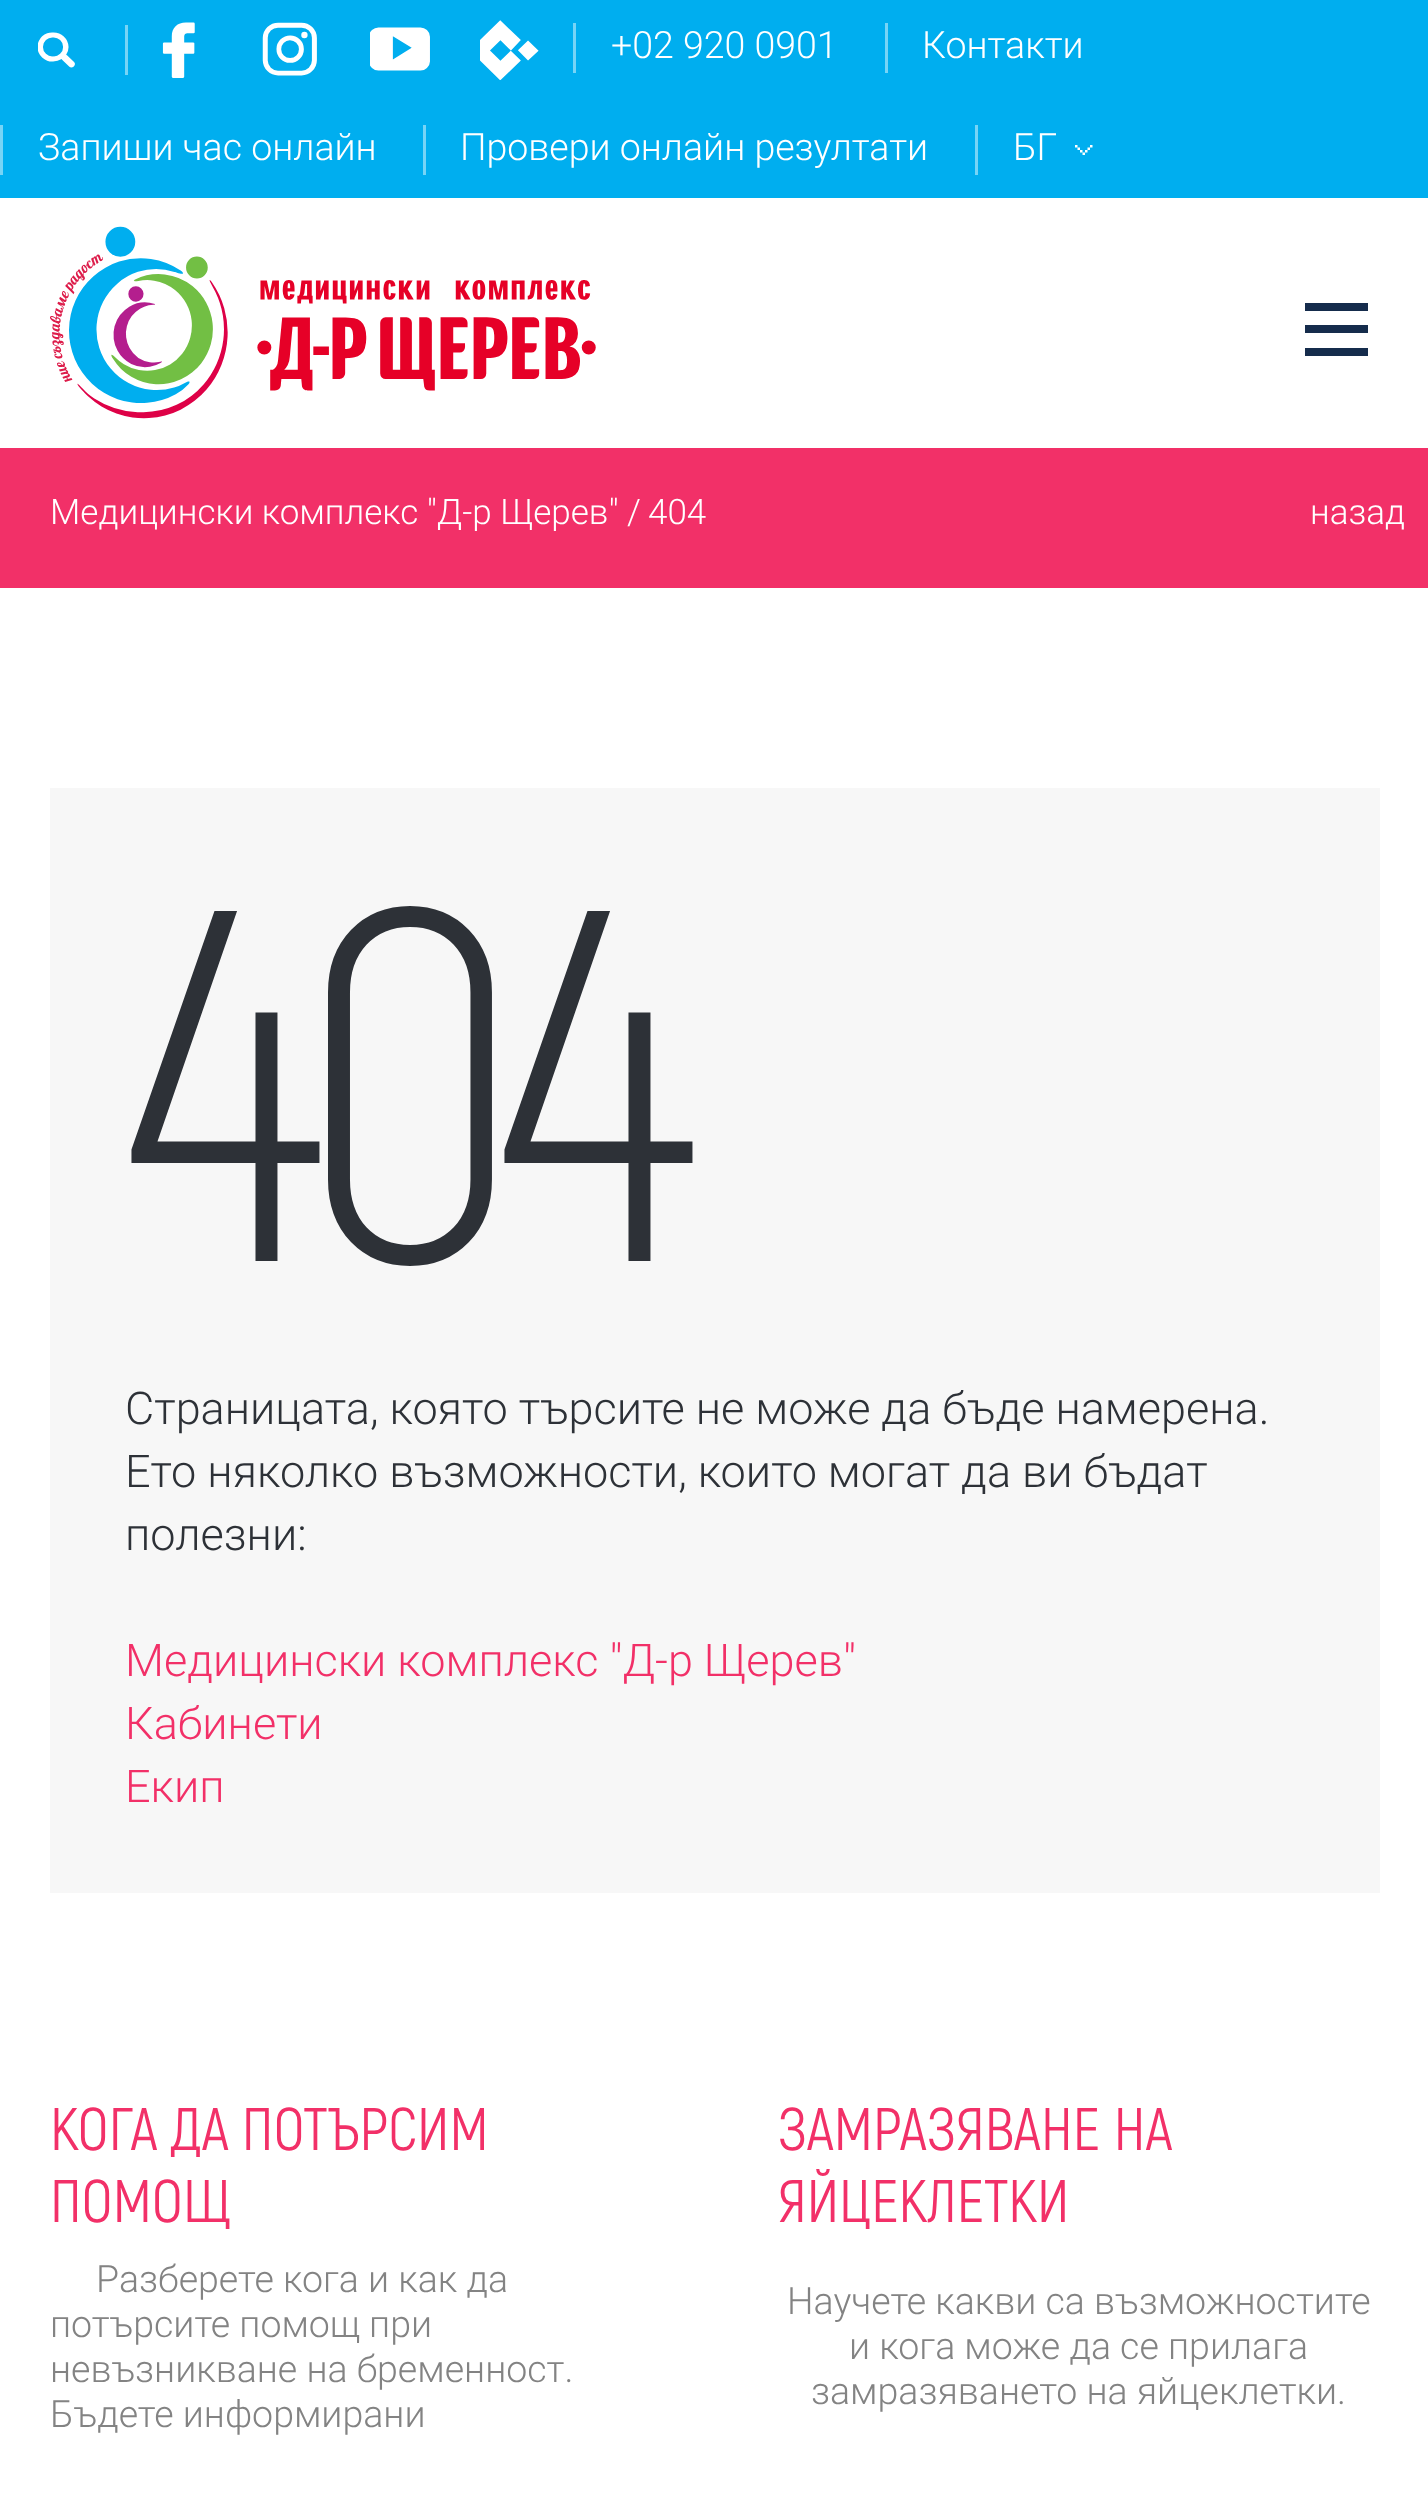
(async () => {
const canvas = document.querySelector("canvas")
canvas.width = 1428
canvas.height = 2506
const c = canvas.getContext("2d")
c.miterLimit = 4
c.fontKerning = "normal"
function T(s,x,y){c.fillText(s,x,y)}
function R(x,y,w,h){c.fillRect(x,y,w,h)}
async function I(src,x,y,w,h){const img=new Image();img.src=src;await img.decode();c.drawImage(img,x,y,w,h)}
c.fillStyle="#fff"
R(0,0,1428,2506)
c.fillStyle="#00aeef"
R(0,0,1428,198)
await I("1.png",38,32,37,36)
c.fillStyle="#77d4f6"
R(125,25,3,50)
await I("2.png",162,22,33,56)
await I("3.png",262,22,55,54)
await I("4.png",370,27,60,44)
await I("5.png",480,20,59,60)
R(573,23,3,50)
c.font="300 37.5px Roboto"
c.fillStyle="#fff"
T("+02 920 0901",611,58)
c.fillStyle="#77d4f6"
R(885,23,3,50)
c.fillStyle="#fff"
T("Контакти",922,58)
c.fillStyle="#77d4f6"
R(0,125,3,50)
c.fillStyle="#fff"
T("Запиши час онлайн",38,160)
c.fillStyle="#77d4f6"
R(423,125,3,50)
c.fillStyle="#fff"
T("Провери онлайн резултати",460,160)
c.fillStyle="#77d4f6"
R(975,125,3,50)
c.fillStyle="#fff"
T("БГ",1013,160)
await I("6.png",1075,145,18,10)
await I("7.png",50,226,546,193)
c.fillStyle="#152c4c"
R(1305,303,63,8)
R(1305,325,63,8)
R(1305,348,63,8)
c.fillStyle="#f23068"
R(0,448,1428,140)
c.font="300 35px Roboto"
c.fillStyle="#fff"
T("Медицински комплекс \"Д-р Щерев\" /",50,524)
T("404",648,524)
T("назад",1310,524)
c.fillStyle="#f7f7f7"
R(50,788,1330,1105)
c.letterSpacing="-25px"
c.font="300 500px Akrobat"
c.fillStyle="#2d3137"
T("404",125,1261)
c.letterSpacing="0px"
c.font="300 45px Roboto"
T("Страницата, която търсите не може да бъде намерена.",125,1424)
T("Ето няколко възможности, които могат да ви бъдат",125,1487)
T("полезни:",125,1550)
c.fillStyle="#f23068"
T("Медицински комплекс \"Д-р Щерев\"",125,1676)
T("Кабинети",125,1739)
T("Екип",125,1802)
c.wordSpacing="-1px"
c.font="60px Akrobat"
T("КОГА ДА ПОТЪРСИМ",50,2150)
c.wordSpacing="0px"
T("ПОМОЩ",50,2222)
c.font="300 37.5px Roboto"
c.fillStyle="#838383"
T("Разберете кога и как да",96,2292)
T("потърсите помощ при",50,2337)
T("невъзникване на бременност.",50,2382)
T("Бъдете информирани",50,2427)
c.font="60px Akrobat"
c.fillStyle="#f23068"
T("ЗАМРАЗЯВАНЕ НА",778,2150)
T("ЯЙЦЕКЛЕТКИ",778,2222)
c.font="300 37.5px Roboto"
c.fillStyle="#838383"
T("Научете какви са възможностите",787,2314)
T("и кога може да се прилага",849,2359)
T("замразяването на яйцеклетки.",811,2404)
})()
